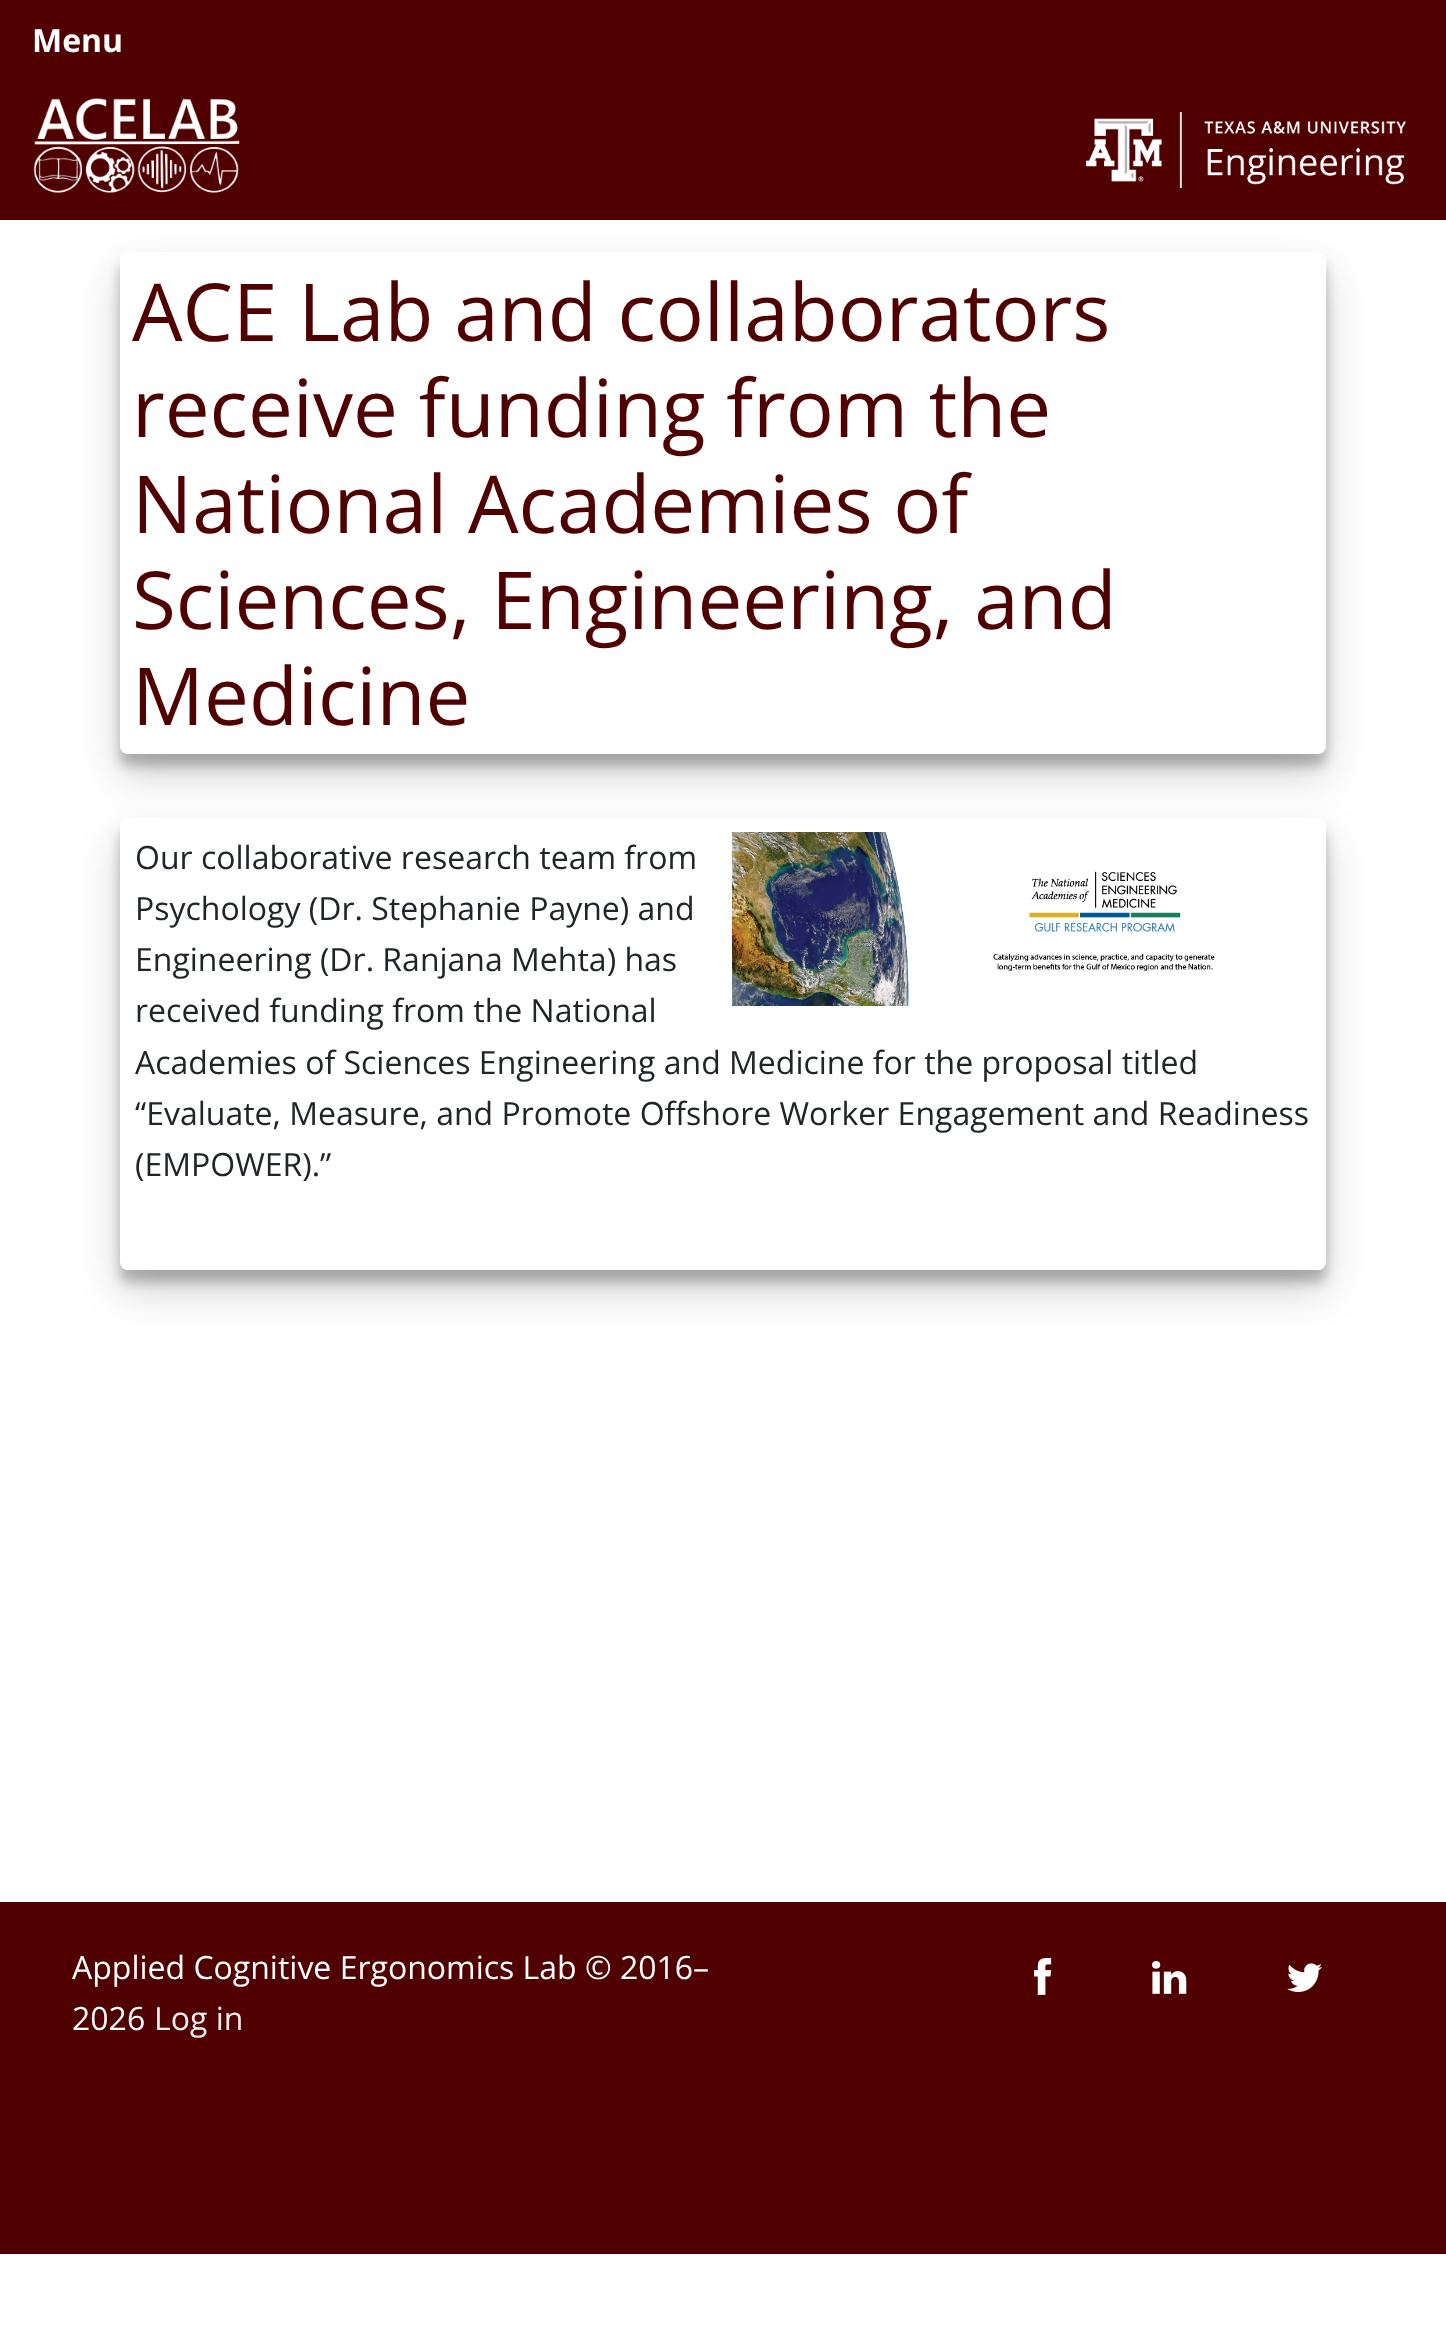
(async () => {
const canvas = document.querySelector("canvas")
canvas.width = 1446
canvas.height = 2337
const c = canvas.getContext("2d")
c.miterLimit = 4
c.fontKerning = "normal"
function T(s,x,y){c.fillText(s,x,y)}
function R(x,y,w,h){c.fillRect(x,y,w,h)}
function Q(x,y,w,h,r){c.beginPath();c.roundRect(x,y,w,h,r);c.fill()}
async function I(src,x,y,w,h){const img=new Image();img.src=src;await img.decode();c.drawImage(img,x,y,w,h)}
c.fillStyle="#fff"
R(0,0,1446,2337)
c.fillStyle="#0000003b"
c.filter="blur(6px)"
c.beginPath()
c.roundRect(120,830,1206,452,8)
c.fill()
c.filter="none"
c.fillStyle="#00000030"
c.filter="blur(20px)"
c.beginPath()
c.roundRect(120,838,1206,452,8)
c.fill()
c.filter="none"
c.fillStyle="#fff"
Q(120,818,1206,452,8)
c.fillStyle="#00000030"
c.filter="blur(20px)"
c.beginPath()
c.roundRect(120,272,1206,502,8)
c.fill()
c.filter="none"
c.fillStyle="#500000"
R(0,0,1446,220)
c.font="bold 32px Open Sans"
c.fillStyle="#fff"
T("Menu",32,52)
await I("1.png",33,98,207,95)
await I("2.png",1086,112,320,76)
c.fillStyle="#0000003b"
c.filter="blur(6px)"
c.beginPath()
c.roundRect(120,264,1206,502,8)
c.fill()
c.filter="none"
c.fillStyle="#fff"
Q(120,252,1206,502,8)
c.font="80px Open Sans"
c.fillStyle="#500000"
T("ACE Lab and collaborators",132,341)
T("receive funding from the",132,437)
T("National Academies of",132,533)
T("Sciences, Engineering, and",132,629)
T("Medicine",132,725)
await I("3.png",732,832,483,174)
c.font="32px Open Sans"
c.fillStyle="#212529"
T("Our collaborative research team from",135,869)
T("Psychology (Dr. Stephanie Payne) and",135,920)
T("Engineering (Dr. Ranjana Mehta) has",135,971)
T("received funding from the National",135,1022)
T("Academies of Sciences Engineering and Medicine for the proposal titled",135,1074)
T("“Evaluate, Measure, and Promote Offshore Worker Engagement and Readiness",135,1125)
T("(EMPOWER).”",135,1176)
c.fillStyle="#500000"
R(0,1902,1446,352)
c.fillStyle="#fff"
T("Applied Cognitive Ergonomics Lab © 2016–",72,1979)
T("2026",72,2030)
c.fillStyle="#eee"
T("Log in",154,2030)
await I("4.png",1034,1958,18,37)
await I("5.png",1152,1961,35,33)
await I("6.png",1287,1963,35,29)
})()
